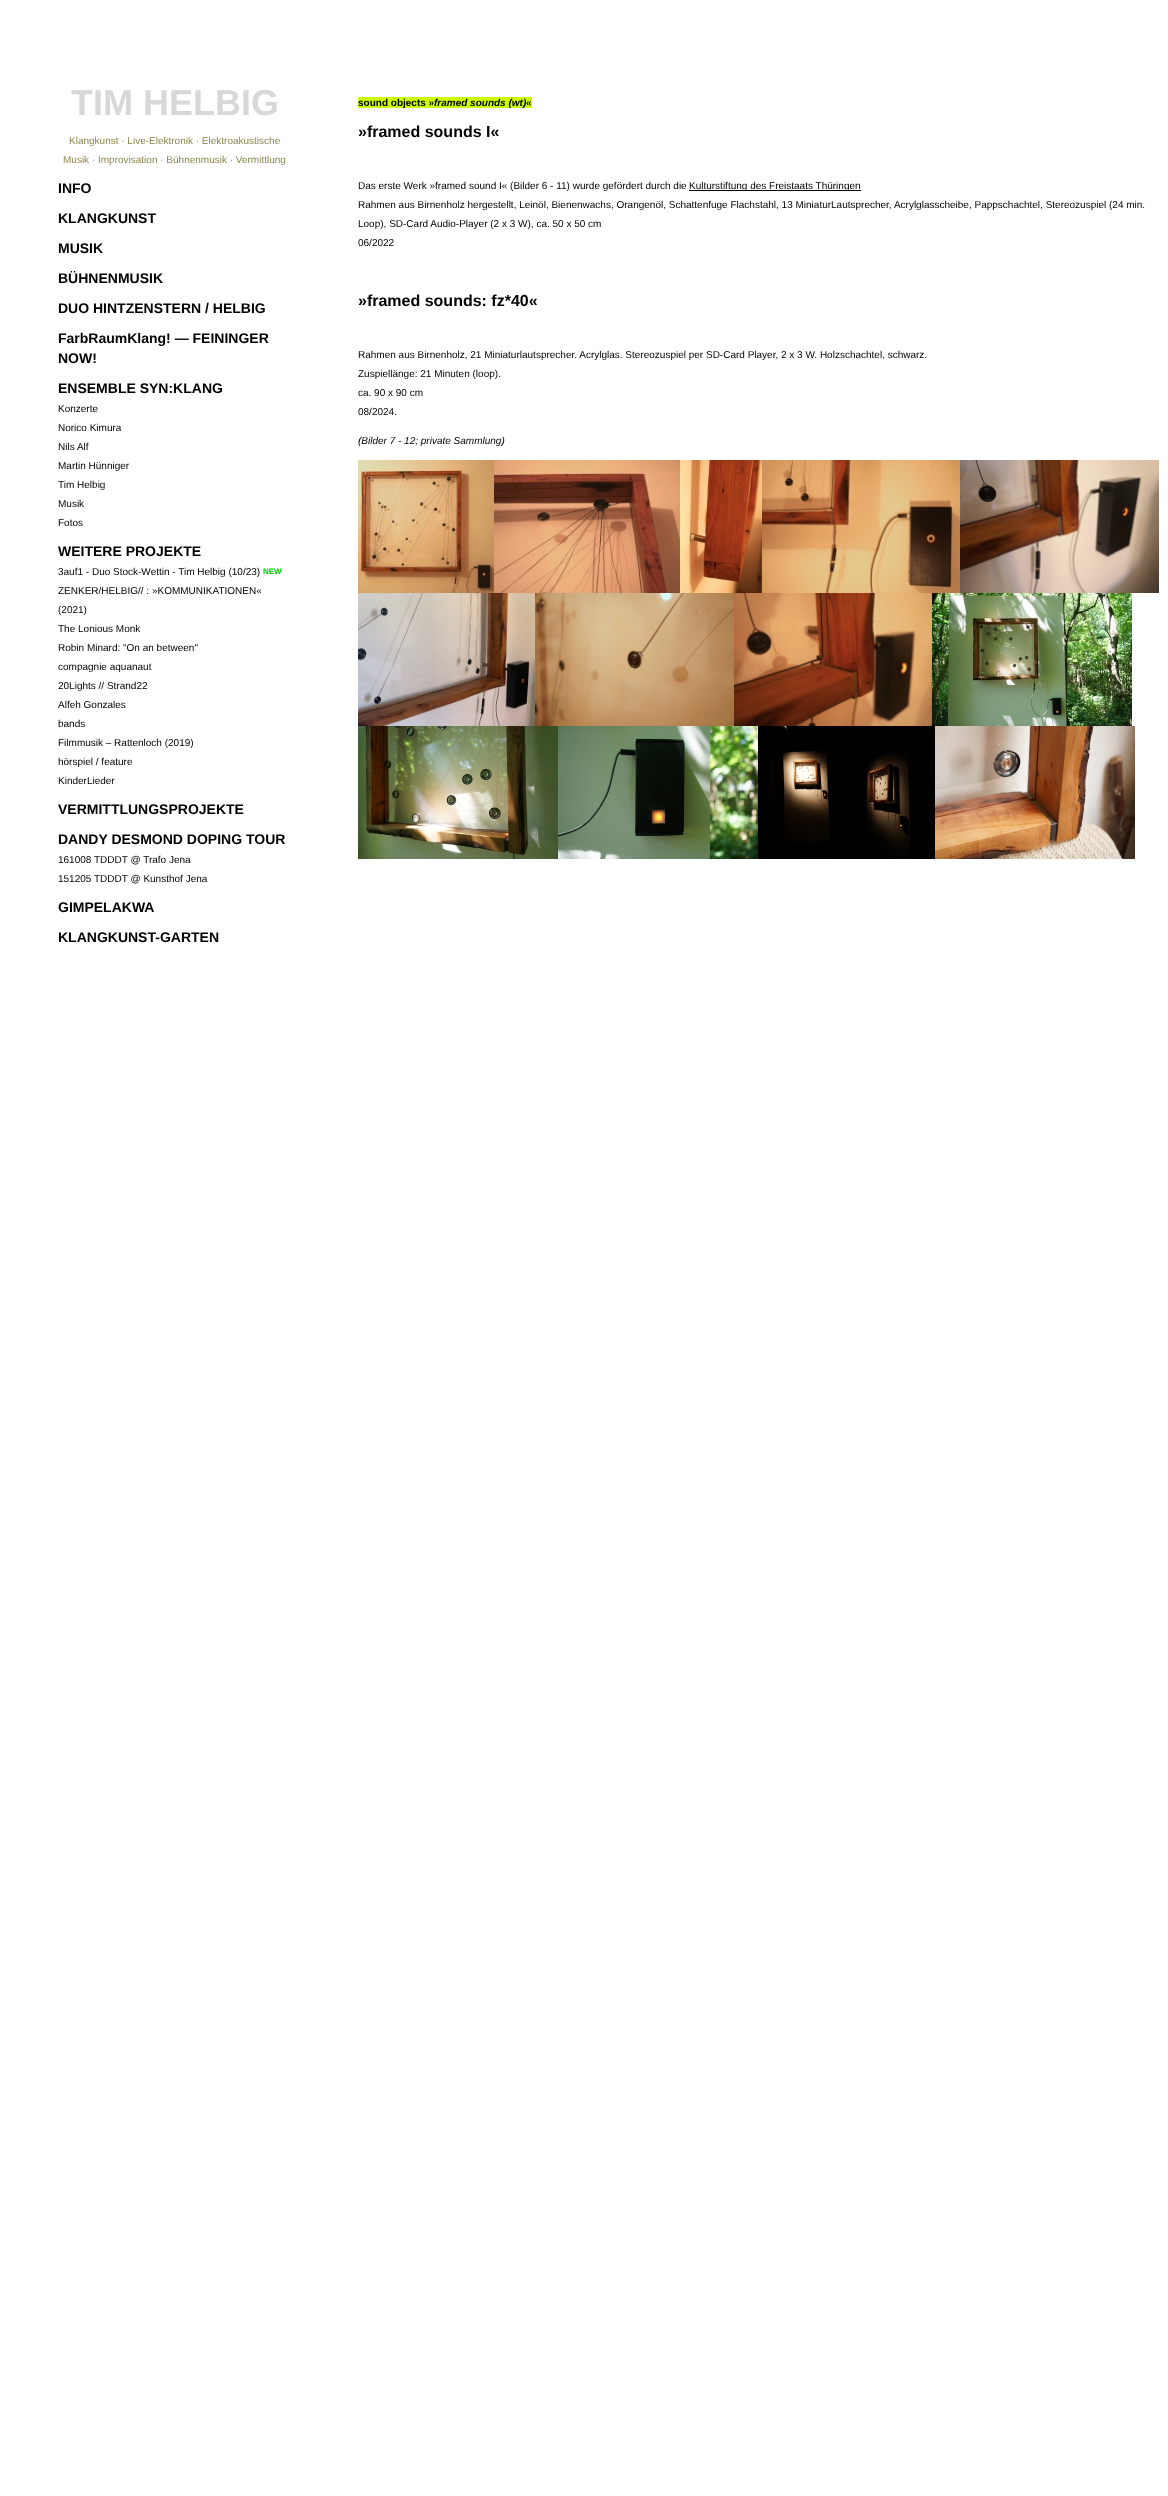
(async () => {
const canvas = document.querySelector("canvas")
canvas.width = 1168
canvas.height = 2496
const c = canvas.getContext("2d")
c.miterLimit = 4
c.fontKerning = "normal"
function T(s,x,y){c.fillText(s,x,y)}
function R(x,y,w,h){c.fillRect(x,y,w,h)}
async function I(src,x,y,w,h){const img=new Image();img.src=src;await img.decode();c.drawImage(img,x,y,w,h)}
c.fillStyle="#fff"
R(0,0,1168,2496)
c.font="bold 36px Liberation Sans"
c.fillStyle="#d8d8d8"
T("TIM HELBIG",71,115)
c.font="10px Liberation Sans"
c.fillStyle="#8b864e"
T("Klangkunst · Live-Elektronik · Elektroakustische",69,144)
T("Musik · Improvisation · Bühnenmusik · Vermittlung",63,163)
c.font="bold 14px Liberation Sans"
c.fillStyle="#000"
T("INFO",58,193)
T("KLANGKUNST",58,223)
T("MUSIK",58,253)
T("BÜHNENMUSIK",58,283)
T("DUO HINTZENSTERN / HELBIG",58,313)
T("FarbRaumKlang! — FEININGER",58,343)
T("NOW!",58,363)
T("ENSEMBLE SYN:KLANG",58,393)
c.font="10px Liberation Sans"
T("Konzerte",58,412)
T("Norico Kimura",58,431)
T("Nils Alf",58,450)
T("Martin Hünniger",58,469)
T("Tim Helbig",58,488)
T("Musik",58,507)
T("Fotos",58,526)
c.font="bold 14px Liberation Sans"
T("WEITERE PROJEKTE",58,556)
c.font="10px Liberation Sans"
T("3auf1 - Duo Stock-Wettin - Tim Helbig (10/23)",58,575)
c.font="bold 8px Liberation Sans"
c.fillStyle="#0c0"
T("NEW",263,574)
c.font="10px Liberation Sans"
c.fillStyle="#000"
T("ZENKER/HELBIG// : »KOMMUNIKATIONEN«",58,594)
T("(2021)",58,613)
T("The Lonious Monk",58,632)
T("Robin Minard: \"On an between\"",58,651)
T("compagnie aquanaut",58,670)
T("20Lights // Strand22",58,689)
T("Alfeh Gonzales",58,708)
T("bands",58,727)
T("Filmmusik – Rattenloch (2019)",58,746)
T("hörspiel / feature",58,765)
T("KinderLieder",58,784)
c.font="bold 14px Liberation Sans"
T("VERMITTLUNGSPROJEKTE",58,814)
T("DANDY DESMOND DOPING TOUR",58,844)
c.font="10px Liberation Sans"
T("161008 TDDDT @ Trafo Jena",58,863)
T("151205 TDDDT @ Kunsthof Jena",58,882)
c.font="bold 14px Liberation Sans"
T("GIMPELAKWA",58,912)
T("KLANGKUNST-GARTEN",58,942)
c.fillStyle="#cf0"
R(358,97,174,11)
c.font="bold 10px Liberation Sans"
c.fillStyle="#000"
T("sound objects »",358,106)
c.font="italic bold 10px Liberation Sans"
T("framed sounds (wt)",434,106)
c.font="bold 10px Liberation Sans"
T("«",526,106)
c.font="bold 16px Liberation Sans"
T("»framed sounds I«",358,137)
c.font="10px Liberation Sans"
T("Das erste Werk »framed sound I« (Bilder 6 - 11) wurde gefördert durch die",358,189)
R(689,190,172,1)
T("Kulturstiftung des Freistaats Thüringen",689,189)
T("Rahmen aus Birnenholz hergestellt, Leinöl, Bienenwachs, Orangenöl, Schattenfuge Flachstahl, 13 MiniaturLautsprecher, Acrylglasscheibe, Pappschachtel, Stereozuspiel (24 min.",358,208)
T("Loop), SD-Card Audio-Player (2 x 3 W), ca. 50 x 50 cm",358,227)
T("06/2022",358,246)
c.font="bold 16px Liberation Sans"
T("»framed sounds: fz*40«",358,306)
c.font="10px Liberation Sans"
T("Rahmen aus Birnenholz, 21 Miniaturlautsprecher. Acrylglas. Stereozuspiel per SD-Card Player, 2 x 3 W. Holzschachtel, schwarz.",358,358)
T("Zuspiellänge: 21 Minuten (loop).",358,377)
T("ca. 90 x 90 cm",358,396)
T("08/2024.",358,415)
c.font="italic 10px Liberation Sans"
T("(Bilder 7 - 12; private Sammlung)",358,444)
await I("1.png",358,460,136,133)
await I("2.png",494,460,186,133)
await I("3.png",680,460,82,133)
await I("4.png",762,460,198,133)
await I("5.png",960,460,199,133)
await I("6.png",358,593,177,133)
await I("7.png",535,593,199,133)
await I("8.png",734,593,198,133)
await I("9.png",932,593,200,133)
await I("10.png",358,726,200,133)
await I("11.png",558,726,200,133)
await I("12.png",758,726,88,133)
await I("13.png",846,726,89,133)
await I("14.png",935,726,200,133)
})()
